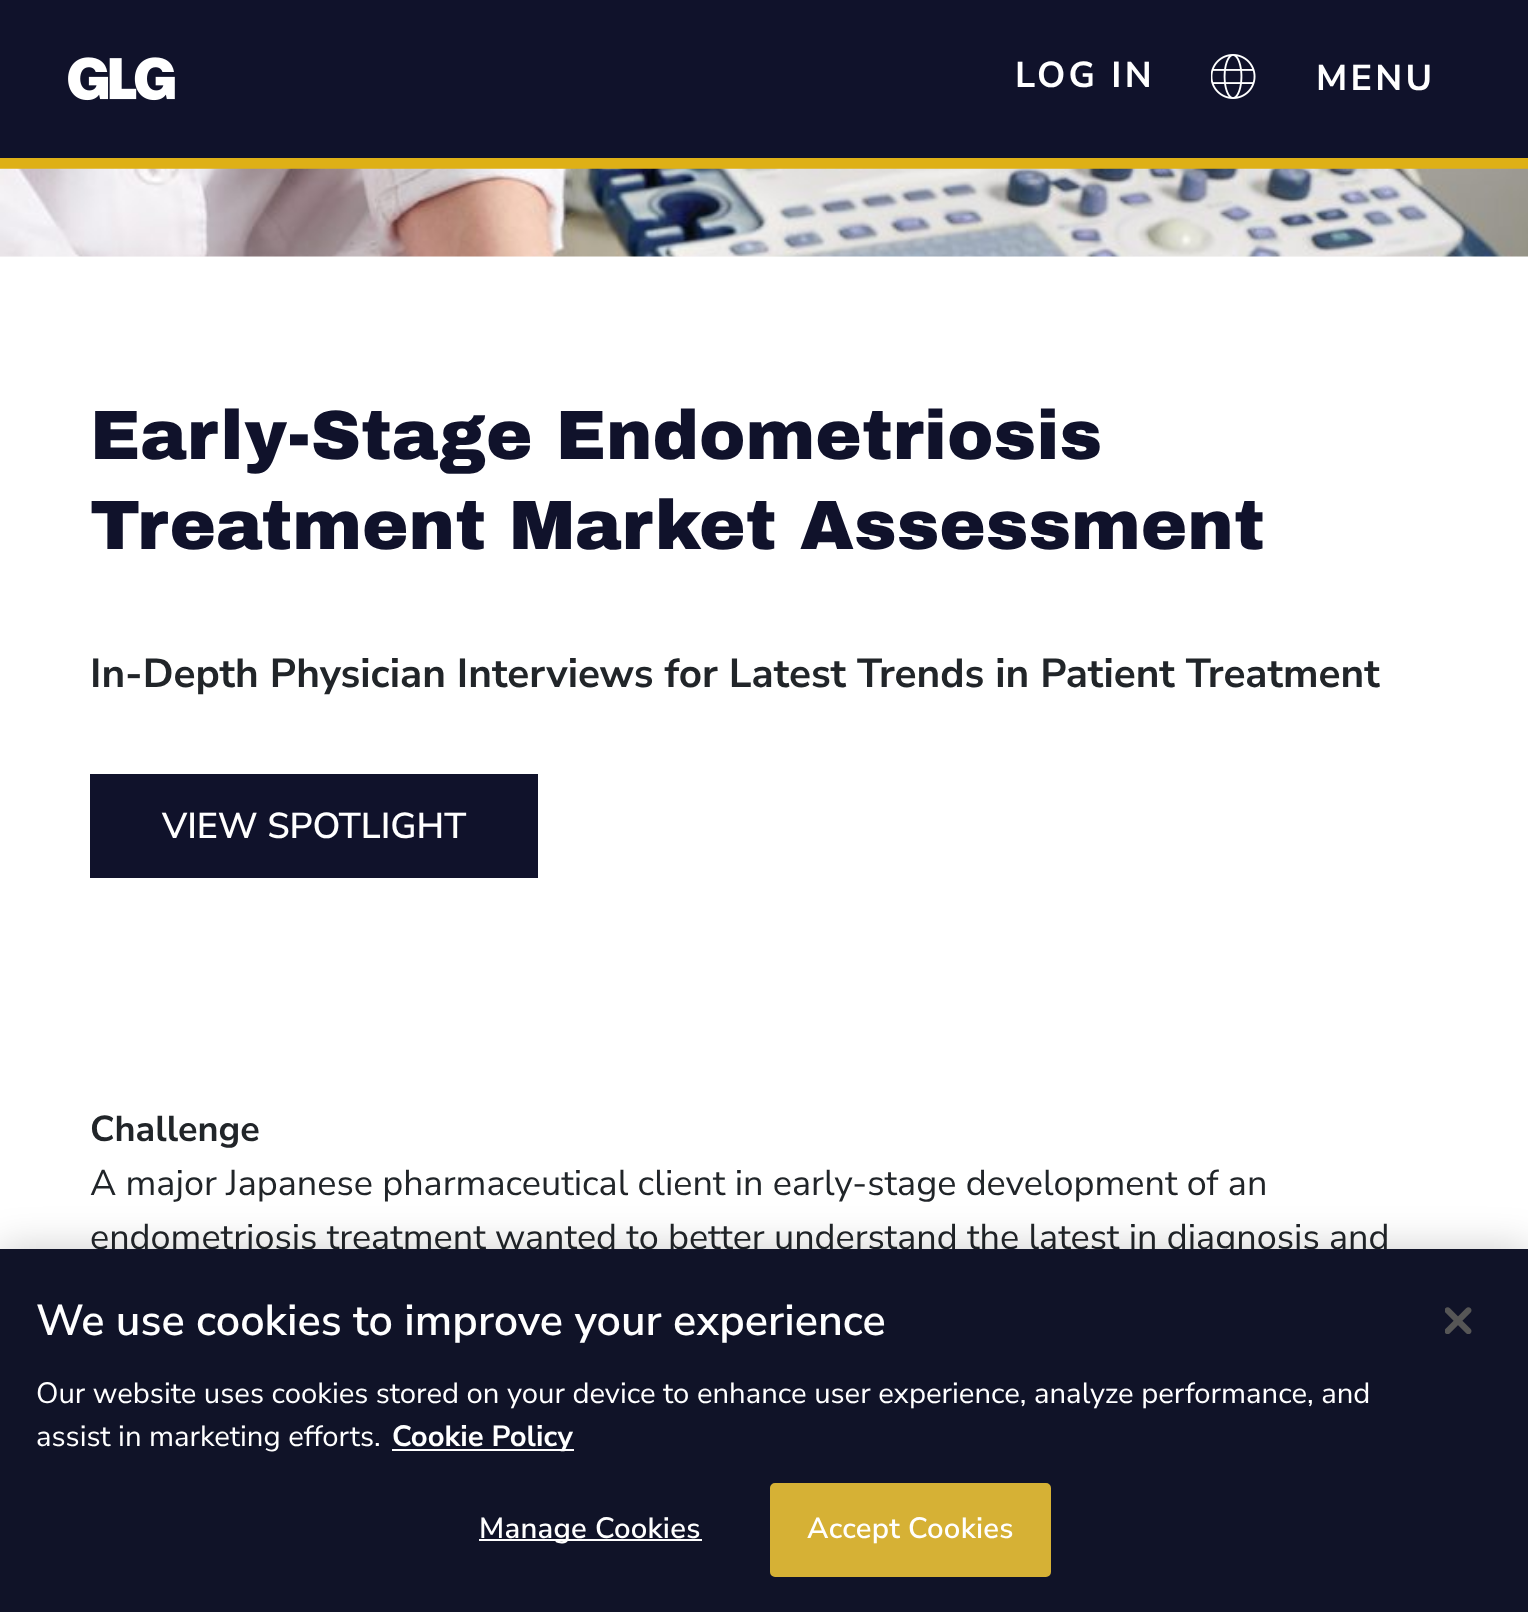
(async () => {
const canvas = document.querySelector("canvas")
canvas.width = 1528
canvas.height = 1612
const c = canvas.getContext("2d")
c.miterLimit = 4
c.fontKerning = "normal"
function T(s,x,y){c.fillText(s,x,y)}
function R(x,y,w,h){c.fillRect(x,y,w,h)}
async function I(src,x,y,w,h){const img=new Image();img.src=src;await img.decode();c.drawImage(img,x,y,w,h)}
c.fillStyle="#fbfbfb"
R(0,0,1528,1612)
c.fillStyle="#10122b"
R(0,0,1528,158)
await I("1.png",68,57,107,44)
c.letterSpacing="3.25px"
c.font="bold 36px Nunito Sans"
c.fillStyle="#fff"
T("LOG IN",1015,87)
await I("2.png",1211,54,45,45)
T("MENU",1316,90)
c.fillStyle="#deb016"
R(0,158,1528,11)
await I("3.png",0,168,1528,89)
c.fillStyle="#fff"
R(0,257,1528,992)
c.letterSpacing="0px"
c.font="900 69.75px Archivo Black"
c.fillStyle="#10122b"
T("Early-Stage Endometriosis",90,459)
T("Treatment Market Assessment",90,549)
c.font="bold 40.5px Nunito Sans"
c.fillStyle="#212529"
T("In-Depth Physician Interviews for Latest Trends in Patient Treatment",90,687)
c.fillStyle="#10122b"
R(90,774,448,104)
c.font="600 36px Nunito Sans"
c.fillStyle="#fff"
T("VIEW SPOTLIGHT",162,838)
c.font="bold 36px Nunito Sans"
c.fillStyle="#212529"
T("Challenge",90,1141)
c.font="36px Nunito Sans"
T("A major Japanese pharmaceutical client in early-stage development of an",90,1195)
T("endometriosis treatment wanted to better understand the latest in diagnosis and",90,1249)
c.fillStyle="#00000033"
c.filter="blur(20px)"
c.beginPath()
c.rect(0,1249,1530,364)
c.fill()
c.filter="none"
c.fillStyle="#101328"
R(0,1249,1528,363)
c.font="600 43.25px Nunito Sans"
c.fillStyle="#fff"
T("We use cookies to improve your experience",36,1335)
c.font="29.25px Nunito Sans"
T("Our website uses cookies stored on your device to enhance user experience, analyze performance, and",36,1403)
T("assist in marketing efforts.",36,1446)
R(392,1449,182,2)
c.font="bold 29.25px Nunito Sans"
T("Cookie Policy",392,1446)
R(479,1539,223,2)
c.letterSpacing="0.25px"
c.font="600 29.25px Nunito Sans"
T("Manage Cookies",479,1538)
c.fillStyle="#d6b135"
c.beginPath()
c.roundRect(771,1484,279,92,4)
c.fill()
c.strokeStyle="#d6b135"
c.lineWidth=2
c.stroke()
c.fillStyle="#fff"
T("Accept Cookies",807,1538)
await I("4.png",1445,1307,27,27)
})()
